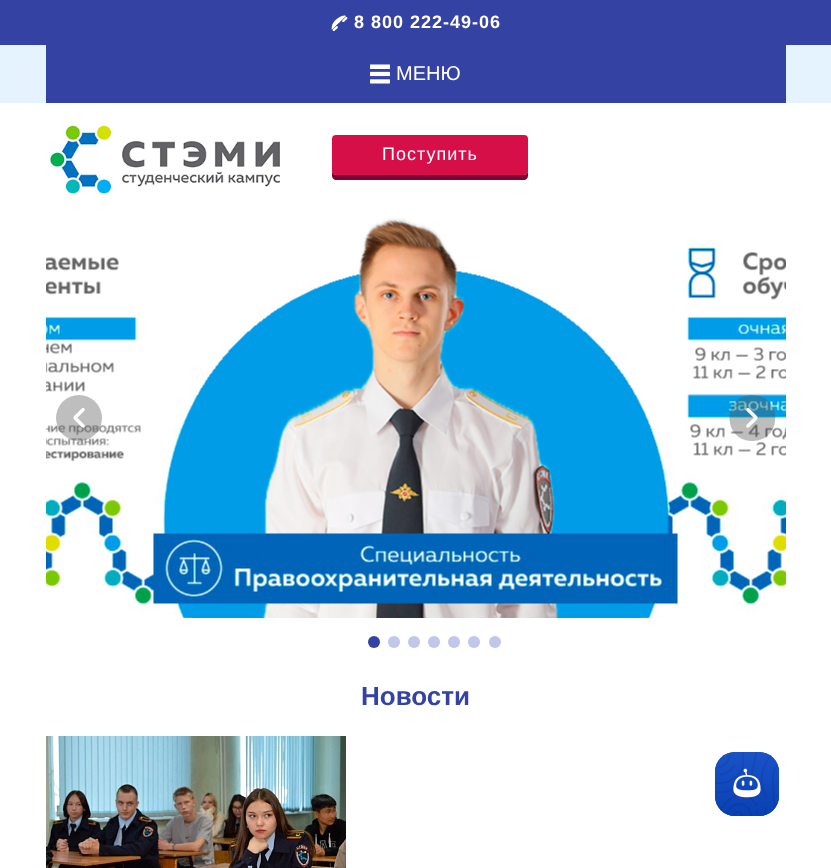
(async () => {
const canvas = document.querySelector("canvas")
canvas.width = 831
canvas.height = 868
const c = canvas.getContext("2d")
c.miterLimit = 4
c.fontKerning = "normal"
function T(s,x,y){c.fillText(s,x,y)}
function R(x,y,w,h){c.fillRect(x,y,w,h)}
function Q(x,y,w,h,r){c.beginPath();c.roundRect(x,y,w,h,r);c.fill()}
async function I(src,x,y,w,h){const img=new Image();img.src=src;await img.decode();c.drawImage(img,x,y,w,h)}
let path
c.fillStyle="#fff"
R(0,0,831,868)
c.fillStyle="#3442a3"
R(0,0,831,45)
await I("1.png",331,15,17,16)
c.letterSpacing="1px"
c.font="bold 18px Arimo"
c.fillStyle="#fff"
T("8 800 222-49-06",354,28)
c.fillStyle="#e5f3ff"
R(0,45,831,58)
c.fillStyle="#3442a3"
R(46,45,740,58)
await I("2.png",370,64,20,20)
c.letterSpacing="0px"
c.font="20px Arimo"
c.fillStyle="#fff"
T("МЕНЮ",396,80)
await I("3.png",49,125,231,70)
c.fillStyle="#7a0434"
path = new Path2D("M332 171v5c0 2 2 4 4 4h188c2 0 4-2 4-4v-5c0 2-2 4-4 4h-188c-2 0-4-2-4-4z")
c.fill(path)
c.fillStyle="#d60f48"
Q(332,135,196,40,4)
c.letterSpacing="1px"
c.font="18px Arimo"
c.fillStyle="#fff"
T("Поступить",382,160)
await I("4.png",46,218,740,400)
c.fillStyle="#54545461"
c.beginPath()
c.arc(79,418,23,0,7)
c.fill()
await I("5.png",73,408,12,20)
path = new Path2D("M752 395c-30 0-30 46 0 46c31 0 31-46 0-46z")
c.fill(path)
await I("6.png",746,408,12,20)
c.fillStyle="#3442a3"
c.beginPath()
c.arc(374,642,6,0,7)
c.fill()
c.fillStyle="#c1c6eb"
c.beginPath()
c.arc(394,642,6,0,7)
c.fill()
c.beginPath()
c.arc(414,642,6,0,7)
c.fill()
c.beginPath()
c.arc(434,642,6,0,7)
c.fill()
c.beginPath()
c.arc(454,642,6,0,7)
c.fill()
c.beginPath()
c.arc(474,642,6,0,7)
c.fill()
c.beginPath()
c.arc(495,642,6,0,7)
c.fill()
c.letterSpacing="0px"
c.font="bold 26px Arimo"
c.fillStyle="#3442a3"
T("Новости",361,705)
await I("7.png",46,736,300,132)
await I("8.png",715,752,64,64)
await I("9.png",715,752,64,64)
await I("10.png",715,752,64,64)
await I("11.png",733,768,28,30)
})()
